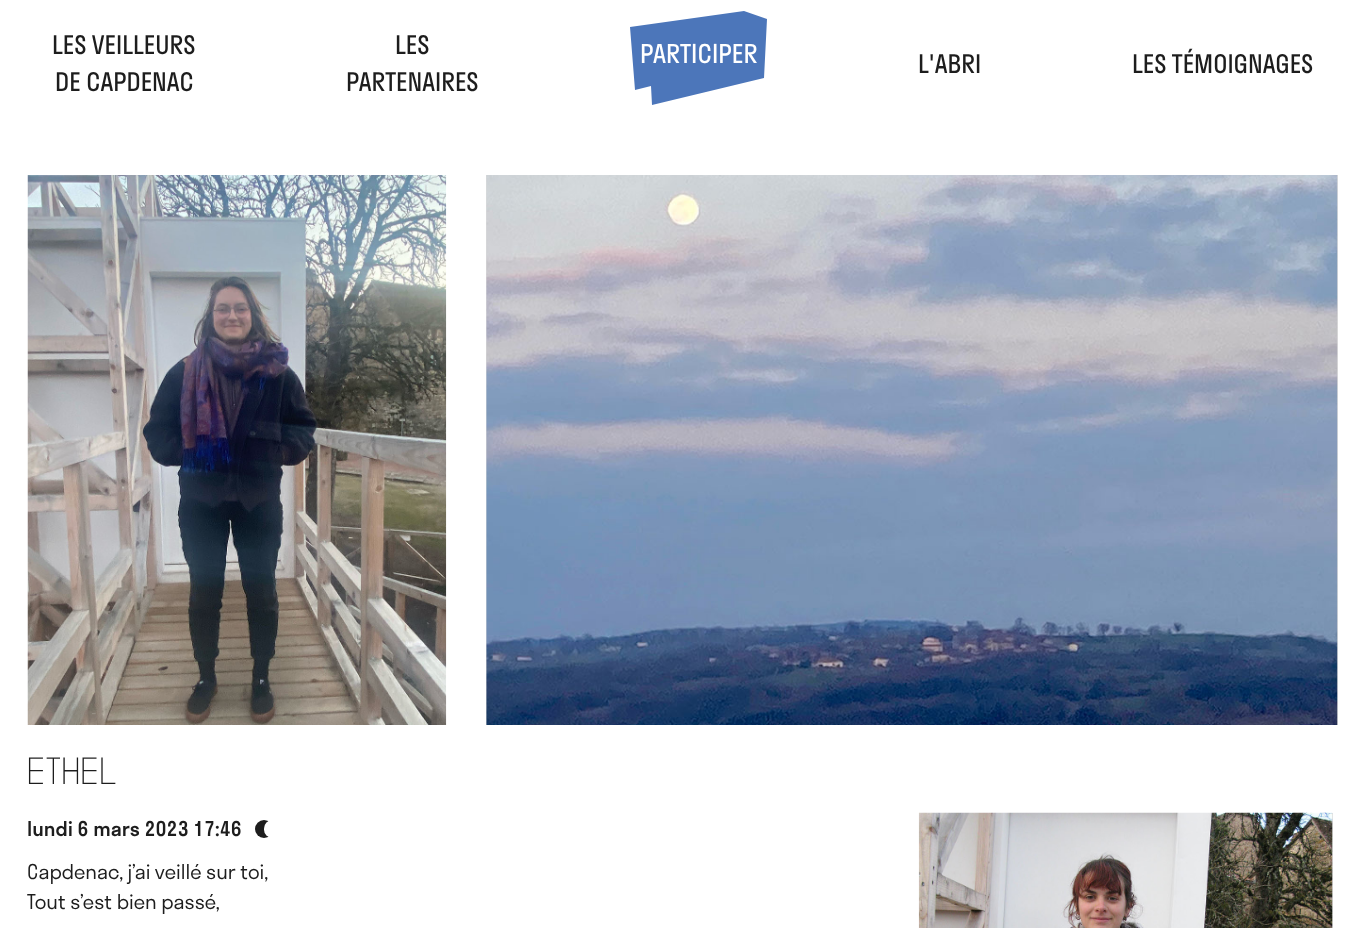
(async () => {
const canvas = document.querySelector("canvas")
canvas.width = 1364
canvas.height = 928
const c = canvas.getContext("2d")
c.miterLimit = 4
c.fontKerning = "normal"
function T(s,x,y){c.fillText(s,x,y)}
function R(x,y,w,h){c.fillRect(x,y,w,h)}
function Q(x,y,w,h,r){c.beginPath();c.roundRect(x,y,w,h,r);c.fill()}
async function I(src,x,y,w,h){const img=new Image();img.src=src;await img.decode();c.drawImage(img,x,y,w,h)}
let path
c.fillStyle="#fff"
R(0,0,1364,928)
c.font="25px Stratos"
c.fillStyle="#1d1d1d"
T("LES VEILLEURS",52,54)
T("DE CAPDENAC",55,91)
T("LES",395,54)
T("PARTENAIRES",346,91)
c.fillStyle="#4c76ba"
path = new Path2D("M630 27l5 63l16-4l1 19l112-27l3-59l-23-8z")
c.fill(path)
c.font="25.5px Stratos"
c.fillStyle="#fff"
T("PARTICIPER",640,63)
c.font="25px Stratos"
c.fillStyle="#1d1d1d"
T("L'ABRI",918,73)
T("LES TÉMOIGNAGES",1132,73)
await I("1.png",27,175,420,550)
c.font="300 16px 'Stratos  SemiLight'"
c.fillStyle="#958e84"
T("-",91,718)
c.fillStyle="#ddd"
R(486,175,852,550)
await I("2.png",486,175,852,550)
c.font="37.5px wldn"
c.fillStyle="#1d1d1d"
T("Ethel",27,784)
c.font="500 20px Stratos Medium"
T("lundi 6 mars 2023 17:46",27,836)
c.beginPath()
c.arc(264,829,9,0,7)
c.fill()
c.fillStyle="#fff"
Q(264,820,17,18,8.5)
c.font="300 20px 'Stratos  SemiLight'"
c.fillStyle="#1d1d1d"
T("Capdenac, j’ai veillé sur toi,",27,879)
T("Tout s’est bien passé,",27,909)
c.fillStyle="#ddd"
R(1332,813,1,115)
await I("3.png",918,812,415,116)
})()
